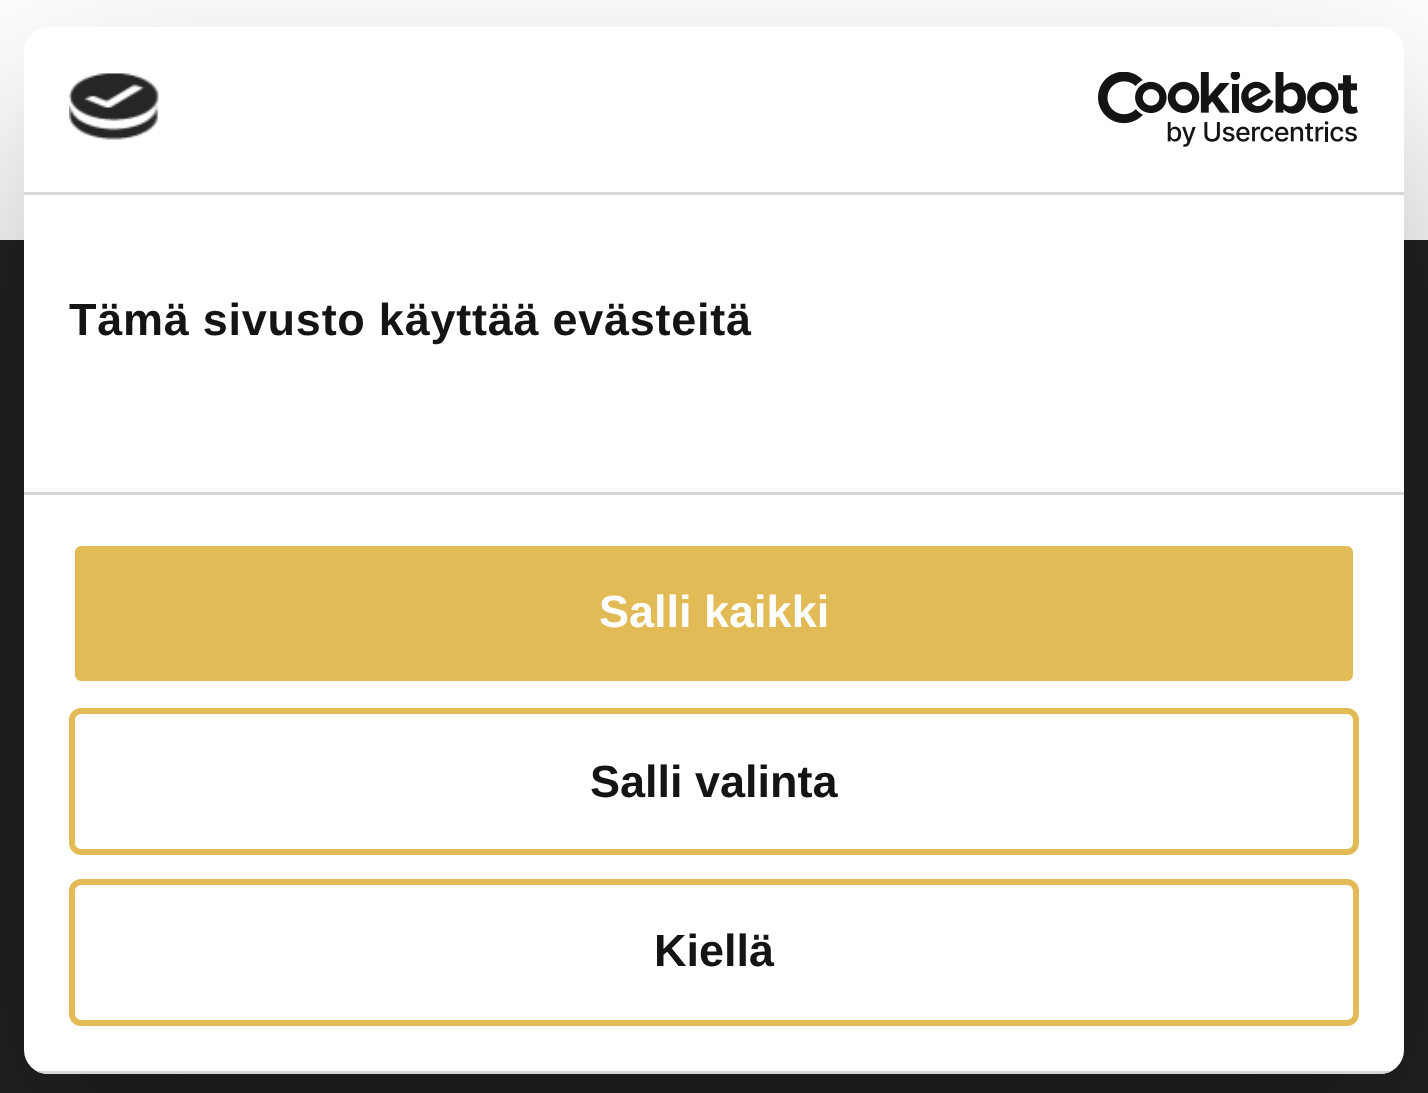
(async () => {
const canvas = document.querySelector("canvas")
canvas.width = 1428
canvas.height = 1093
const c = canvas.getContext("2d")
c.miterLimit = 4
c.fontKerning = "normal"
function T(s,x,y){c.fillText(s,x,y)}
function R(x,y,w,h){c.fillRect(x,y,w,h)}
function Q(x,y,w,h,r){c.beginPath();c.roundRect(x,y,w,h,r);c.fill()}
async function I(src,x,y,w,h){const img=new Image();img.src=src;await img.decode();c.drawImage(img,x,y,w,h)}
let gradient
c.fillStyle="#222"
R(0,0,1428,1093)
c.fillStyle="#fff"
R(0,0,1428,240)
c.fillStyle="#0000004d"
c.filter="blur(102px)"
c.beginPath()
c.roundRect(24,123,1380,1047,24)
c.fill()
c.filter="none"
c.fillStyle="#fff"
Q(24,27,1380,1047,24)
c.fillStyle="#d6d6d6"
R(24,192,1380,3)
await I("1.png",69,73,90,67)
await I("2.png",1098,72,260,75)
R(24,492,1380,3)
c.letterSpacing="0.75px"
c.font="bold 45px Liberation Sans"
c.fillStyle="#141414"
T("Tämä sivusto käyttää evästeitä",69,335)
gradient = c.createLinearGradient(695,491,695,341)
gradient.addColorStop(0,"#fff")
gradient.addColorStop(.5,"#ffffffcc")
gradient.addColorStop(1,"#ffffff00")
c.fillStyle = gradient
R(433,343,8,2)
c.save()
c.beginPath()
c.roundRect(24,27,1380,1047,24)
c.clip()
c.fillStyle="#d6d6d6"
R(36,1071,1356,3)
c.restore()
c.fillStyle="#e3bb56"
c.beginPath()
c.roundRect(72,543,1284,141,9)
c.fill()
c.strokeStyle="#fff"
c.lineWidth=6
c.stroke()
c.letterSpacing="0px"
c.fillStyle="#fff"
T("Salli kaikki",599,627)
c.beginPath()
c.roundRect(72,711,1284,141,9)
c.strokeStyle="#e3bb56"
c.stroke()
c.fillStyle="#141414"
T("Salli valinta",590,797)
c.beginPath()
c.roundRect(72,882,1284,141,9)
c.stroke()
T("Kiellä",654,966)
})()
